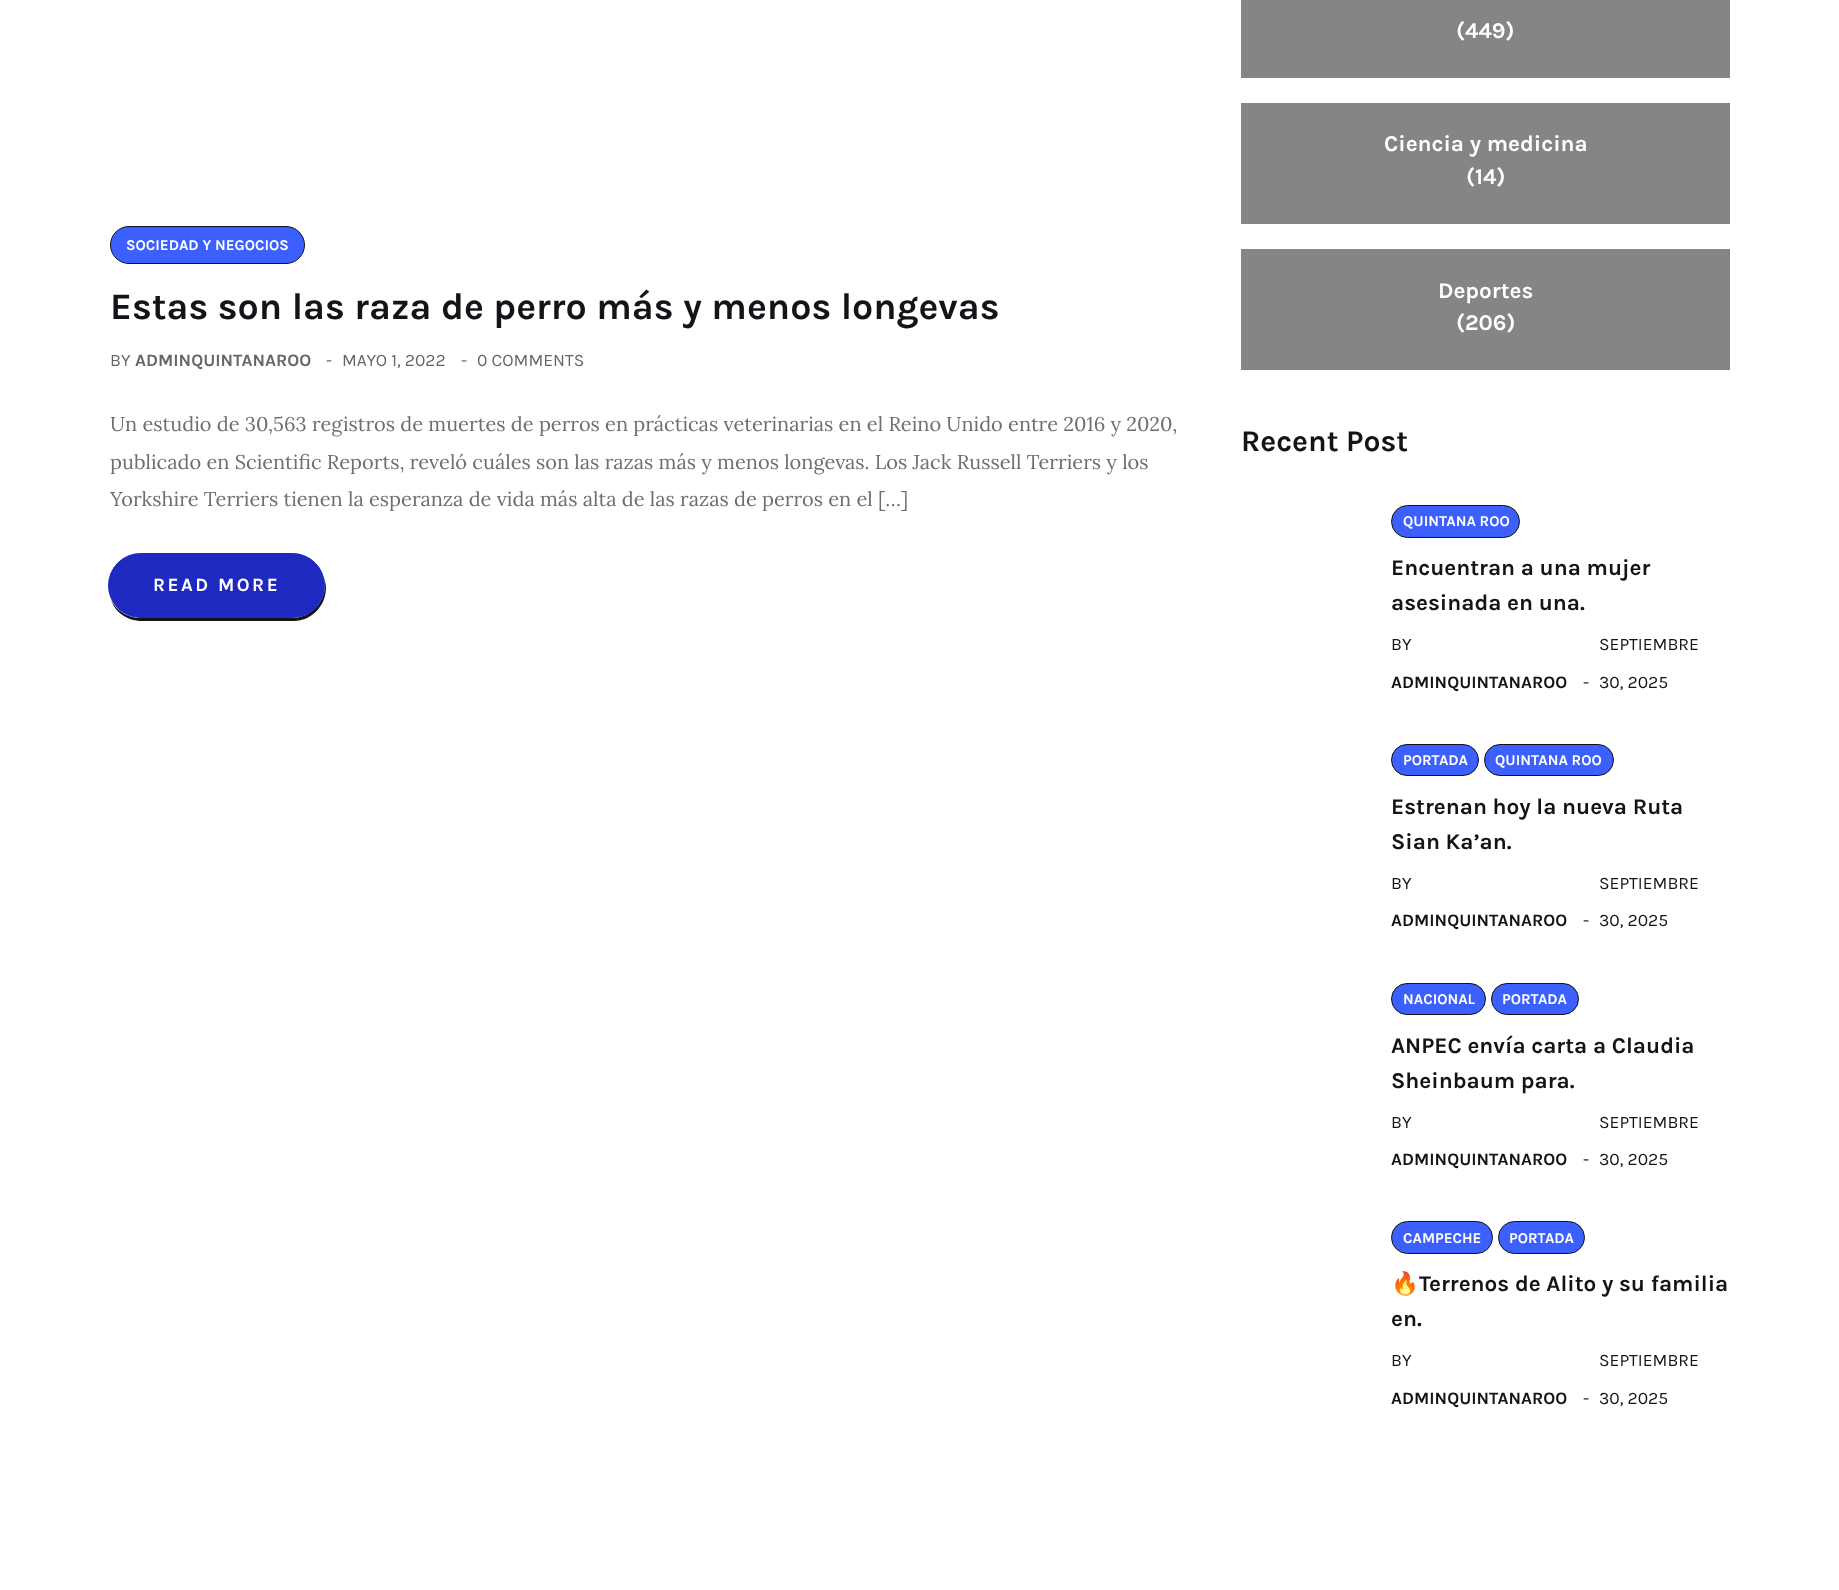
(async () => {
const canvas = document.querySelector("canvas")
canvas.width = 1839
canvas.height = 1590
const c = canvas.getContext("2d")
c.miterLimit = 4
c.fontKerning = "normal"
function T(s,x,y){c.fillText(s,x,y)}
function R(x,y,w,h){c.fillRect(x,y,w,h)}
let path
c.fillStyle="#fff"
R(0,0,1839,1590)
c.fillStyle="#3b60fe"
c.beginPath()
c.roundRect(110.5,226.5,194,37,18.5)
c.fill()
c.strokeStyle="#121418"
c.stroke()
c.font="bold 15px Karla"
c.fillStyle="#fff"
T("SOCIEDAD Y NEGOCIOS",126,250)
c.font="bold 37.5px Karla"
c.fillStyle="#121418"
T("Estas son las raza de perro más y menos longevas",110,319)
c.font="17.5px Karla"
c.fillStyle="#666"
T("BY",110,366)
c.font="bold 17.5px Karla"
T("ADMINQUINTANAROO",135,366)
c.font="17.5px Karla"
T("-",326,366)
T("MAYO 1, 2022",342,366)
T("-",461,366)
T("0 COMMENTS",477,366)
c.font="20px Lora"
c.fillStyle="#6c6f72"
T("Un estudio de 30,563 registros de muertes de perros en prácticas veterinarias en el Reino Unido entre 2016 y 2020,",110,431)
T("publicado en Scientific Reports, reveló cuáles son las razas más y menos longevas. Los Jack Russell Terriers y los",110,469)
T("Yorkshire Terriers tienen la esperanza de vida más alta de las razas de perros en el […]",110,506)
c.fillStyle="#121418"
path = new Path2D("M111 600c4 12 16 21 31 21h152c17 0 32-15 32-33c0-3-1-7-2-10l1 7c0 18-15 33-33 33h-152c-13 0-24-8-29-18z")
c.fill(path)
c.fillStyle="#1e29bf"
c.beginPath()
c.roundRect(108.5,553.5,216,64,32)
c.fill()
c.strokeStyle="#1e29bf"
c.stroke()
c.letterSpacing="2.5px"
c.font="bold 18.75px Karla"
c.fillStyle="#fff"
T("READ MORE",153,591)
c.fillStyle="#858585"
R(1241,0,489,78)
c.letterSpacing="0px"
c.font="bold 22.5px Karla"
c.fillStyle="#fff"
T("(449)",1456,38)
c.fillStyle="#858585"
R(1241,103,489,121)
c.fillStyle="#fff"
T("Ciencia y medicina",1384,151)
T("(14)",1466,184)
c.fillStyle="#858585"
R(1241,249,489,121)
c.fillStyle="#fff"
T("Deportes",1438,298)
T("(206)",1456,330)
c.font="bold 30px Karla"
c.fillStyle="#121418"
T("Recent Post",1241,451)
c.fillStyle="#3b60fe"
c.beginPath()
c.roundRect(1391.5,505.5,128,32,16)
c.fill()
c.strokeStyle="#121418"
c.stroke()
c.font="bold 15px Karla"
c.fillStyle="#fff"
T("QUINTANA ROO",1403,526)
c.font="bold 22.5px Karla"
c.fillStyle="#121418"
T("Encuentran a una mujer",1391,575)
T("asesinada en una.",1391,610)
c.font="17.5px Karla"
T("BY",1391,650)
c.font="bold 17.5px Karla"
T("ADMINQUINTANAROO",1391,688)
c.font="17.5px Karla"
T("-",1583,688)
T("SEPTIEMBRE",1599,650)
T("30, 2025",1599,688)
c.fillStyle="#3b60fe"
c.beginPath()
c.roundRect(1391.5,744.5,87,31,15.5)
c.fill()
c.stroke()
c.font="bold 15px Karla"
c.fillStyle="#fff"
T("PORTADA",1403,765)
c.fillStyle="#3b60fe"
c.beginPath()
c.roundRect(1484.5,744.5,129,31,15.5)
c.fill()
c.stroke()
c.fillStyle="#fff"
T("QUINTANA ROO",1495,765)
c.font="bold 22.5px Karla"
c.fillStyle="#121418"
T("Estrenan hoy la nueva Ruta",1391,814)
T("Sian Ka’an.",1391,849)
c.font="17.5px Karla"
T("BY",1391,889)
c.font="bold 17.5px Karla"
T("ADMINQUINTANAROO",1391,926)
c.font="17.5px Karla"
T("-",1583,926)
T("SEPTIEMBRE",1599,889)
T("30, 2025",1599,926)
c.fillStyle="#3b60fe"
c.beginPath()
c.roundRect(1391.5,983.5,94,31,15.5)
c.fill()
c.stroke()
c.font="bold 15px Karla"
c.fillStyle="#fff"
T("NACIONAL",1403,1004)
c.fillStyle="#3b60fe"
c.beginPath()
c.roundRect(1491.5,983.5,87,31,15.5)
c.fill()
c.stroke()
c.fillStyle="#fff"
T("PORTADA",1502,1004)
c.font="bold 22.5px Karla"
c.fillStyle="#121418"
T("ANPEC envía carta a Claudia",1391,1053)
T("Sheinbaum para.",1391,1088)
c.font="17.5px Karla"
T("BY",1391,1128)
c.font="bold 17.5px Karla"
T("ADMINQUINTANAROO",1391,1165)
c.font="17.5px Karla"
T("-",1583,1165)
T("SEPTIEMBRE",1599,1128)
T("30, 2025",1599,1165)
c.fillStyle="#3b60fe"
c.beginPath()
c.roundRect(1391.5,1221.5,101,32,16)
c.fill()
c.stroke()
c.font="bold 15px Karla"
c.fillStyle="#fff"
T("CAMPECHE",1403,1243)
c.fillStyle="#3b60fe"
c.beginPath()
c.roundRect(1498.5,1221.5,86,32,16)
c.fill()
c.stroke()
c.fillStyle="#fff"
T("PORTADA",1509,1243)
c.font="bold 22.5px Noto Color Emoji"
c.fillStyle="#121418"
T("🔥",1391,1291)
c.font="bold 22.5px Karla"
T("Terrenos de Alito y su familia",1419,1291)
T("en.",1391,1326)
c.font="17.5px Karla"
T("BY",1391,1366)
c.font="bold 17.5px Karla"
T("ADMINQUINTANAROO",1391,1404)
c.font="17.5px Karla"
T("-",1583,1404)
T("SEPTIEMBRE",1599,1366)
T("30, 2025",1599,1404)
})()
